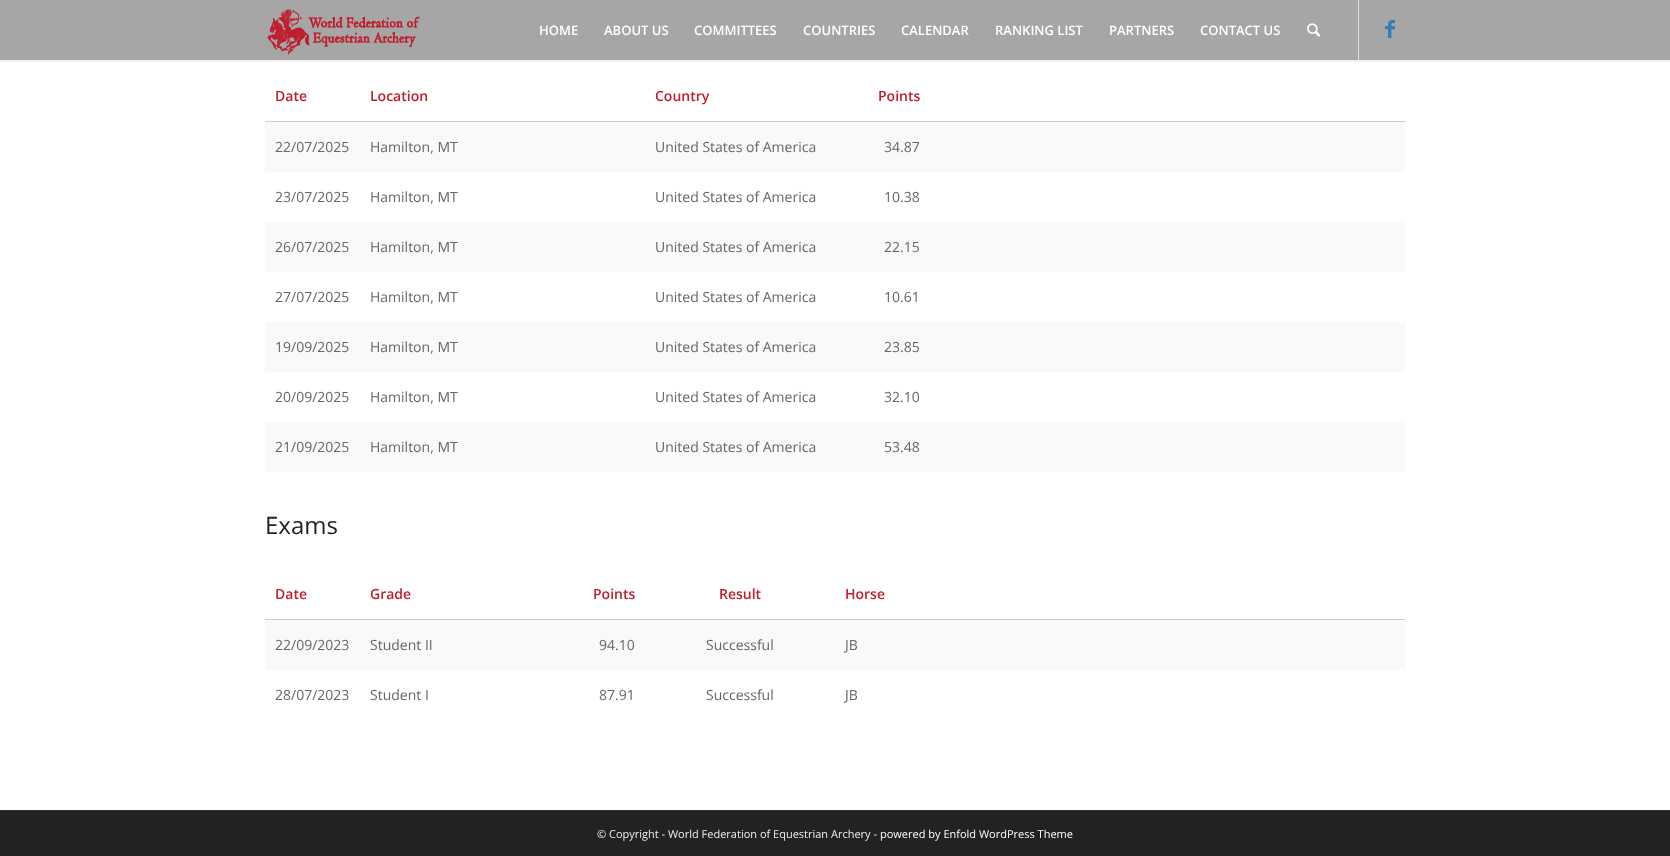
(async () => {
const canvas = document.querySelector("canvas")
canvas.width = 1670
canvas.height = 856
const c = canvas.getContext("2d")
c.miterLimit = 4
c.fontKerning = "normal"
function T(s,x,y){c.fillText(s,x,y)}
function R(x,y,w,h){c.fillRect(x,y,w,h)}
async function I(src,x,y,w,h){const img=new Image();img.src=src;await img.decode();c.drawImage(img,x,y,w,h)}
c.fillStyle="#fff"
R(0,0,1670,856)
c.fillStyle="#0000001a"
c.filter="blur(1px)"
c.beginPath()
c.rect(-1,-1,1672,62)
c.fill()
c.filter="none"
c.fillStyle="#a6a6a6"
R(0,0,1670,60)
await I("1.png",267,9,153,46)
c.fillStyle="#e1e1e1"
R(1358,0,1,60)
c.font="600 13px Open Sans"
c.fillStyle="#fff"
T("HOME",539,35)
T("ABOUT US",604,35)
T("COMMITTEES",694,35)
T("COUNTRIES",803,35)
T("CALENDAR",901,35)
T("RANKING LIST",995,35)
T("PARTNERS",1109,35)
T("CONTACT US",1200,35)
await I("2.png",1307,23,14,14)
await I("3.png",1385,20,10,18)
c.fillStyle="#ccc"
R(265,121,1140,1)
c.font="600 14px Open Sans"
c.fillStyle="#be1e2c"
T("Date",275,101)
T("Location",370,101)
T("Country",655,101)
T("Points",878,101)
c.fillStyle="#f9f9f9"
R(265,122,1140,50)
c.font="14px Open Sans"
c.fillStyle="#666"
T("22/07/2025",275,152)
T("Hamilton, MT",370,152)
T("United States of America",655,152)
T("34.87",884,152)
T("23/07/2025",275,202)
T("Hamilton, MT",370,202)
T("United States of America",655,202)
T("10.38",884,202)
c.fillStyle="#f9f9f9"
R(265,222,1140,50)
c.fillStyle="#666"
T("26/07/2025",275,252)
T("Hamilton, MT",370,252)
T("United States of America",655,252)
T("22.15",884,252)
T("27/07/2025",275,302)
T("Hamilton, MT",370,302)
T("United States of America",655,302)
T("10.61",884,302)
c.fillStyle="#f9f9f9"
R(265,322,1140,50)
c.fillStyle="#666"
T("19/09/2025",275,352)
T("Hamilton, MT",370,352)
T("United States of America",655,352)
T("23.85",884,352)
T("20/09/2025",275,402)
T("Hamilton, MT",370,402)
T("United States of America",655,402)
T("32.10",884,402)
c.fillStyle="#f9f9f9"
R(265,422,1140,50)
c.fillStyle="#666"
T("21/09/2025",275,452)
T("Hamilton, MT",370,452)
T("United States of America",655,452)
T("53.48",884,452)
c.font="24px Open Sans"
c.fillStyle="#222"
T("Exams",265,534)
c.fillStyle="#ccc"
R(265,619,1140,1)
c.font="600 14px Open Sans"
c.fillStyle="#be1e2c"
T("Date",275,599)
T("Grade",370,599)
T("Points",593,599)
T("Result",719,599)
T("Horse",845,599)
c.fillStyle="#f9f9f9"
R(265,620,1140,50)
c.font="14px Open Sans"
c.fillStyle="#666"
T("22/09/2023",275,650)
T("Student II",370,650)
T("94.10",599,650)
T("Successful",706,650)
T("JB",845,650)
T("28/07/2023",275,700)
T("Student I",370,700)
T("87.91",599,700)
T("Successful",706,700)
T("JB",845,700)
c.fillStyle="#222"
R(0,811,1670,45)
c.fillStyle="#333"
R(0,810,1670,1)
c.font="11px Open Sans"
c.fillStyle="#eee"
T("© Copyright - World Federation of Equestrian Archery -",597,838)
c.fillStyle="#fff"
T("powered by Enfold WordPress Theme",880,838)
})()
